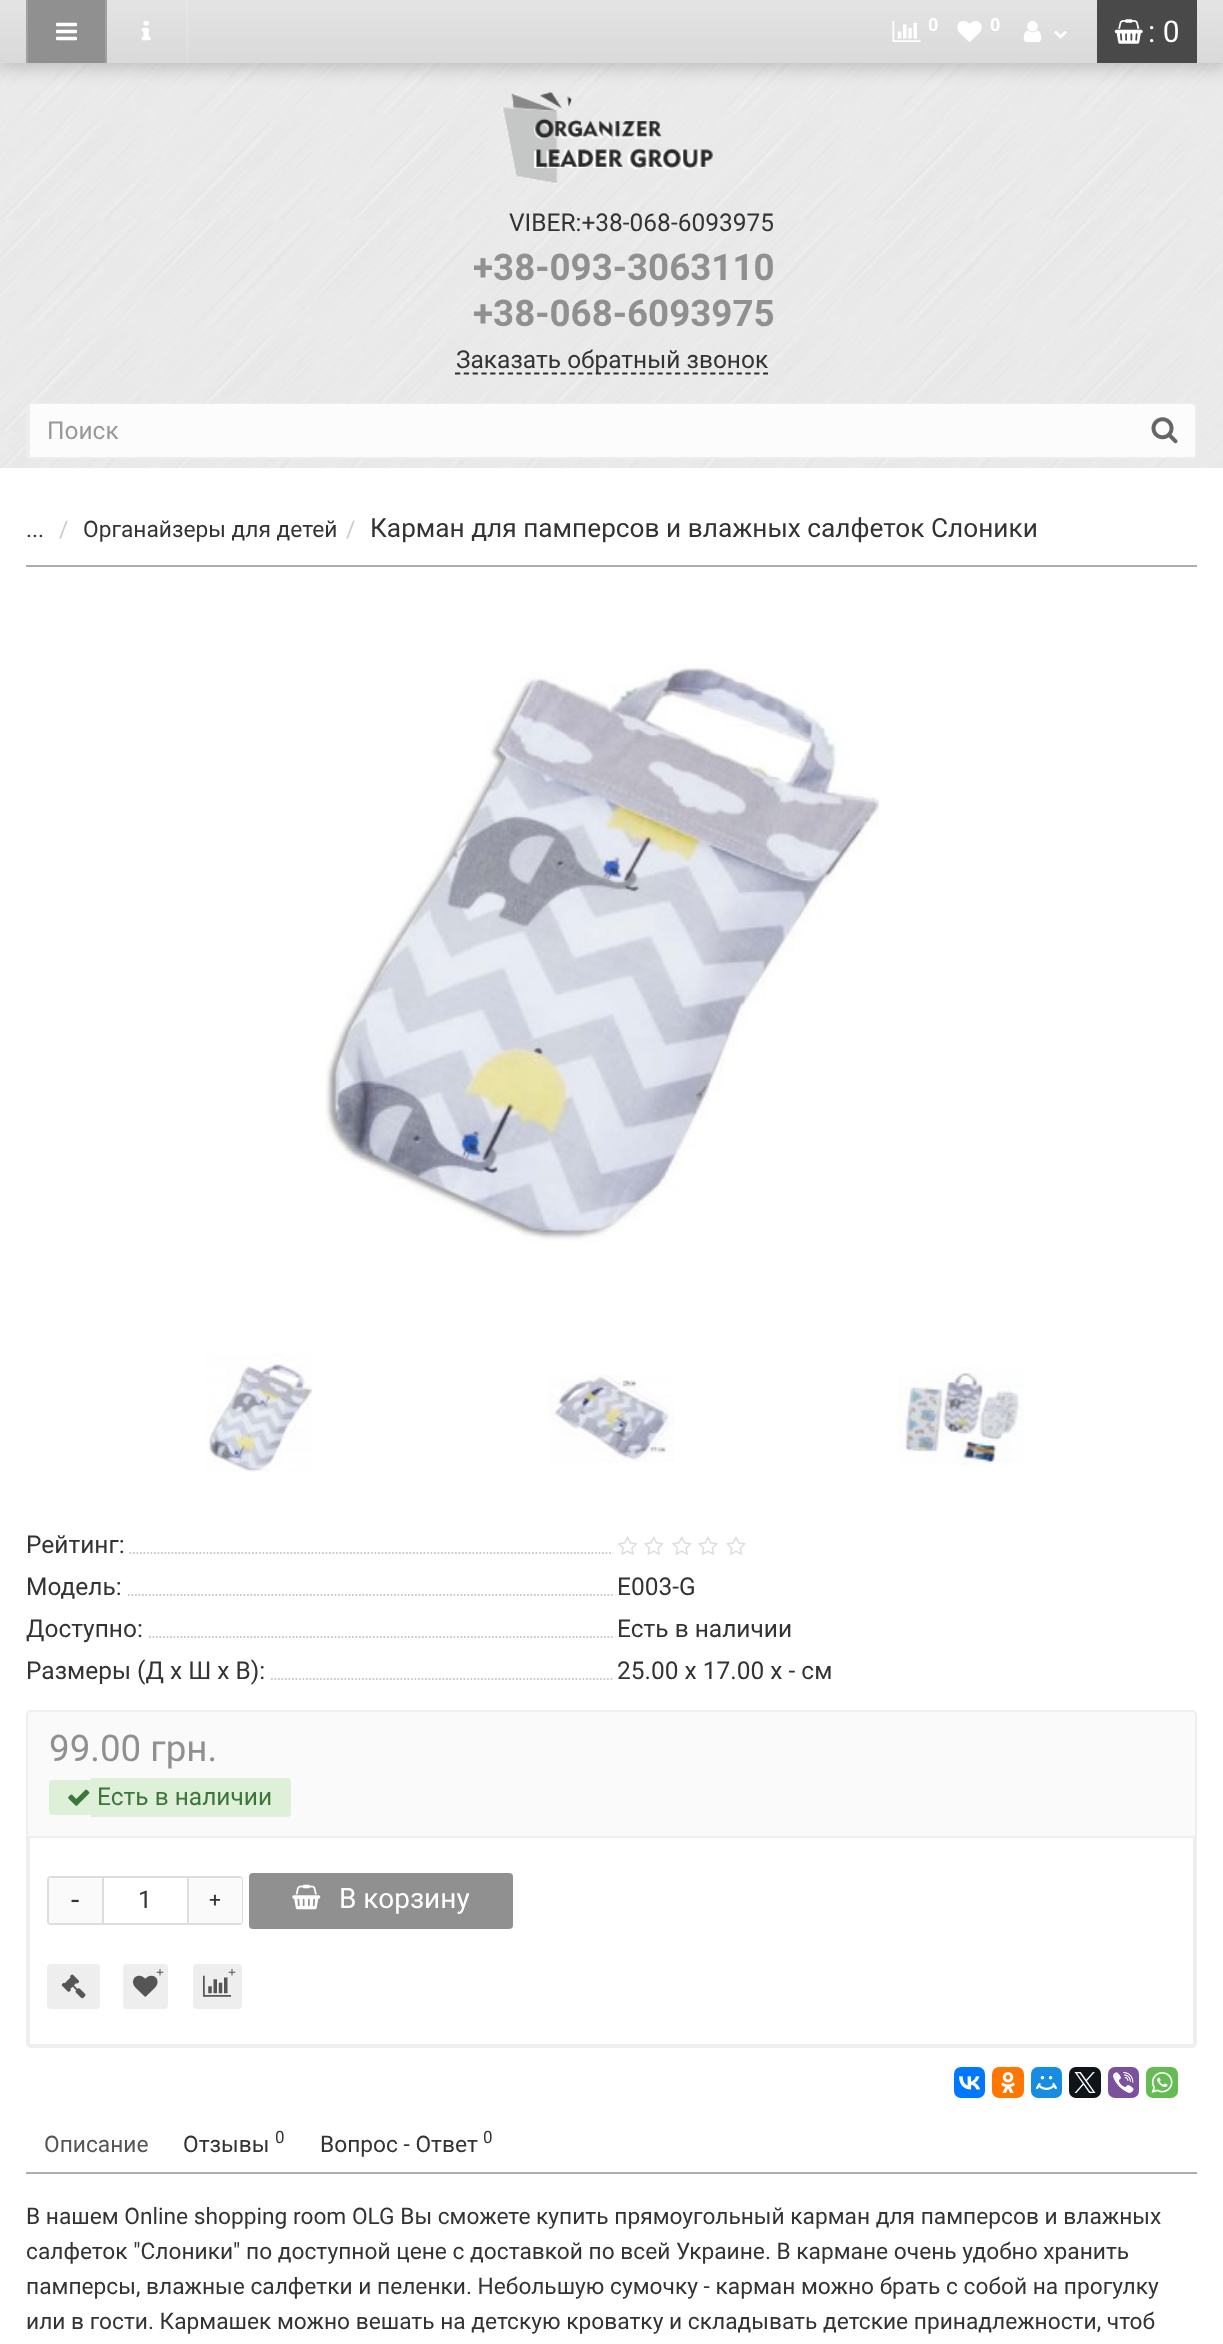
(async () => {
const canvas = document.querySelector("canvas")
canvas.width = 1223
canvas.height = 2344
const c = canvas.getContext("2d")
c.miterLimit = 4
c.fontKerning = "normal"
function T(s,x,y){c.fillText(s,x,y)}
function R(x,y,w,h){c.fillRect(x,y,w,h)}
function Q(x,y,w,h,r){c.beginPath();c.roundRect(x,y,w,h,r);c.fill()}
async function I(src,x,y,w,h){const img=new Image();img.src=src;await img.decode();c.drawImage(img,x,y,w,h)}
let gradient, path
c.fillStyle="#fff"
R(0,0,1223,2344)
await I("1.png",0,63,1223,405)
await I("9.png",502,91,211,93)
c.fillStyle="#00000033"
c.filter="blur(9px)"
c.beginPath()
c.rect(-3,-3,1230,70)
c.fill()
c.filter="none"
gradient = c.createLinearGradient(612,63,612,0)
gradient.addColorStop(0,"#d9d9d9")
gradient.addColorStop(1,"#e4e4e4")
c.fillStyle = gradient
R(0,0,1223,63)
c.fillStyle="#909090"
R(28,0,77,63)
c.fillStyle="#a1a1a1"
R(105,0,2,63)
R(26,0,2,63)
await I("2.png",56,22,21,19)
c.fillStyle="#ffffff26"
R(186,0,2,63)
await I("3.png",141,21,10,20)
await I("4.png",892,21,29,21)
c.font="bold 18px Roboto"
c.fillStyle="#fff"
T("0",928,31)
await I("5.png",957,21,25,21)
T("0",990,31)
await I("6.png",1023,21,19,21)
await I("7.png",1054,31,13,8)
c.fillStyle="#494949"
R(1097,0,100,63)
await I("8.png",1114,19,29,25)
c.font="30px Roboto"
c.fillStyle="#fff"
T(": 0",1148,42)
c.font="24.5px Roboto"
c.fillStyle="#333"
T("VIBER:+38-068-6093975",509,231)
c.font="bold 36.75px Roboto"
c.fillStyle="#909090"
T("+38-093-3063110",473,280)
T("+38-068-6093975",473,326)
path = new Path2D("M455 373.5h313")
c.strokeStyle="#2f2f2f"
c.lineWidth=1.8
c.setLineDash([5.25,3.55])
c.stroke(path)
c.font="24.5px Roboto"
c.fillStyle="#333"
T("Заказать обратный звонок",456,368)
c.fillStyle="#fcfcfc"
c.beginPath()
c.roundRect(27,404,1169,54,3)
c.fill()
c.strokeStyle="#ededed"
c.lineWidth=2
c.setLineDash([])
c.stroke()
R(30,404,1104,1)
c.fillStyle="#ededed"
R(28,404,2,53)
c.fillStyle="#999"
T("Поиск",47,439)
c.fillStyle="#fcfcfc"
Q(1134,404,61,53,4)
await I("10.png",1151,417,27,27)
c.fillStyle="#adadad"
R(26,565,1171,2)
c.font="22.75px Roboto"
c.fillStyle="#333"
T("...",26,537)
c.fillStyle="#ccc"
T("/",59,537)
c.fillStyle="#333"
T("Органайзеры для детей",83,537)
c.fillStyle="#ccc"
T("/",346,537)
c.font="26.25px Roboto"
c.fillStyle="#333"
T("Карман для памперсов и влажных салфеток Слоники",370,537)
await I("11.png",325,664,555,578)
await I("12.png",205,1354,108,118)
await I("13.png",548,1374,127,89)
await I("14.png",898,1367,126,99)
c.font="24.5px Roboto"
T("Рейтинг:",26,1553)
c.save()
c.beginPath()
c.rect(26,1524,587,42)
c.clip()
path = new Path2D("M129.5 1553h586.5")
c.strokeStyle="#ccc"
c.lineWidth=1.8
c.setLineDash([1.75,1.75])
c.stroke(path)
c.restore()
await I("15.png",617,1536,20,19)
await I("16.png",644,1536,20,19)
await I("16.png",672,1536,20,19)
await I("17.png",698,1536,20,19)
await I("17.png",726,1536,20,19)
T("Модель:",26,1595)
c.save()
c.beginPath()
c.rect(26,1566,587,42)
c.clip()
path = new Path2D("M128 1595h584")
c.strokeStyle="#ccc"
c.lineWidth=1.8
c.setLineDash([1.75,1.75])
c.stroke(path)
c.restore()
T("E003-G",617,1595)
T("Доступно:",26,1637)
c.save()
c.beginPath()
c.rect(26,1608,587,42)
c.clip()
path = new Path2D("M149 1637h584")
c.strokeStyle="#ccc"
c.lineWidth=1.8
c.setLineDash([1.75,1.75])
c.stroke(path)
c.restore()
T("Есть в наличии",617,1637)
T("Размеры (Д x Ш x В):",26,1679)
c.save()
c.beginPath()
c.rect(26,1650,587,42)
c.clip()
path = new Path2D("M271 1679h585")
c.strokeStyle="#ccc"
c.lineWidth=1.8
c.setLineDash([1.75,1.75])
c.stroke(path)
c.restore()
T("25.00 x 17.00 x - см",617,1679)
c.fillStyle="#fafafa"
c.beginPath()
c.roundRect(27,1711,1169,336,4)
c.fill()
c.strokeStyle="#eee"
c.stroke()
c.font="36.75px Roboto"
c.fillStyle="#909090"
T("99.00 грн.",49,1761)
c.fillStyle="#dff0d8"
c.beginPath()
c.roundRect(49,1780,42,35,[4,0,0,4])
c.fill()
c.beginPath()
c.roundRect(91,1778,200,39,[0,4,4,0])
c.fill()
await I("18.png",68,1789,22,17)
c.font="24.5px Roboto"
c.fillStyle="#3c763d"
T("Есть в наличии",97,1805)
c.fillStyle="#fff"
c.beginPath()
c.rect(29,1837,1165,208)
c.fill()
c.stroke()
c.beginPath()
c.roundRect(48,1877,194,47,3)
c.strokeStyle="#ddd"
c.stroke()
c.fillStyle="#ddd"
R(187,1878,2,45)
R(102,1878,2,45)
c.fillStyle="#333"
T("1",138,1908)
c.fillStyle="#fafafa"
R(49,1878,53,45)
c.font="30px Roboto"
c.fillStyle="#333"
T("-",71,1910)
c.fillStyle="#fafafa"
R(189,1878,53,45)
c.font="21px Roboto"
c.fillStyle="#333"
T("+",209,1907)
c.fillStyle="#909090"
Q(249,1873,264,56,4)
await I("19.png",292,1884,29,26)
c.font="28px Roboto"
c.fillStyle="#fff"
T("В корзину",339,1908)
c.fillStyle="#eee"
c.beginPath()
c.roundRect(49,1966,49,41,2)
c.fill()
c.strokeStyle="#eee"
c.lineWidth=4
c.stroke()
await I("20.png",61,1974,25,25)
c.beginPath()
c.roundRect(125,1966,41,41,2)
c.fill()
c.stroke()
await I("21.png",133,1975,25,22)
c.font="bold 14px Liberation Serif"
c.fillStyle="#555"
T("+",156,1977)
c.fillStyle="#eee"
c.beginPath()
c.roundRect(195,1966,45,41,2)
c.fill()
c.stroke()
await I("22.png",203,1975,28,22)
c.fillStyle="#555"
T("+",228,1977)
c.fillStyle="#07f"
Q(954,2067,31,31,7)
await I("23.png",959,2076,21,14)
c.fillStyle="#f70"
Q(992,2067,32,31,7)
await I("24.png",1001,2072,14,21)
c.fillStyle="#168de2"
Q(1031,2067,31,31,7)
await I("25.png",1036,2076,21,14)
c.fillStyle="#0f1419"
Q(1069,2067,32,31,7)
await I("26.png",1074,2072,22,21)
c.fillStyle="#7b519d"
Q(1108,2067,31,31,7)
await I("27.png",1113,2072,21,21)
c.fillStyle="#65bc54"
Q(1146,2067,32,31,7)
await I("28.png",1151,2072,22,21)
c.fillStyle="#adadad"
R(26,2172,1171,2)
c.font="22.75px Roboto"
c.fillStyle="#555"
T("Описание",44,2152)
c.fillStyle="#333"
T("Отзывы",183,2152)
c.font="17px Roboto"
T("0",275,2143)
c.font="22.75px Roboto"
T("Вопрос - Ответ",320,2152)
c.font="17px Roboto"
T("0",483,2143)
c.font="22.75px Roboto"
T("В нашем Оnline shopping room ОLG Вы сможете купить прямоугольный карман для памперсов и влажных",26,2224)
T("салфеток \"Слоники\" по доступной цене с доставкой по всей Украине. В кармане очень удобно хранить",26,2259)
T("памперсы, влажные салфетки и пеленки. Небольшую сумочку - карман можно брать с собой на прогулку",26,2294)
T("или в гости. Кармашек можно вешать на детскую кроватку и складывать детские принадлежности, чтоб",26,2329)
})()
